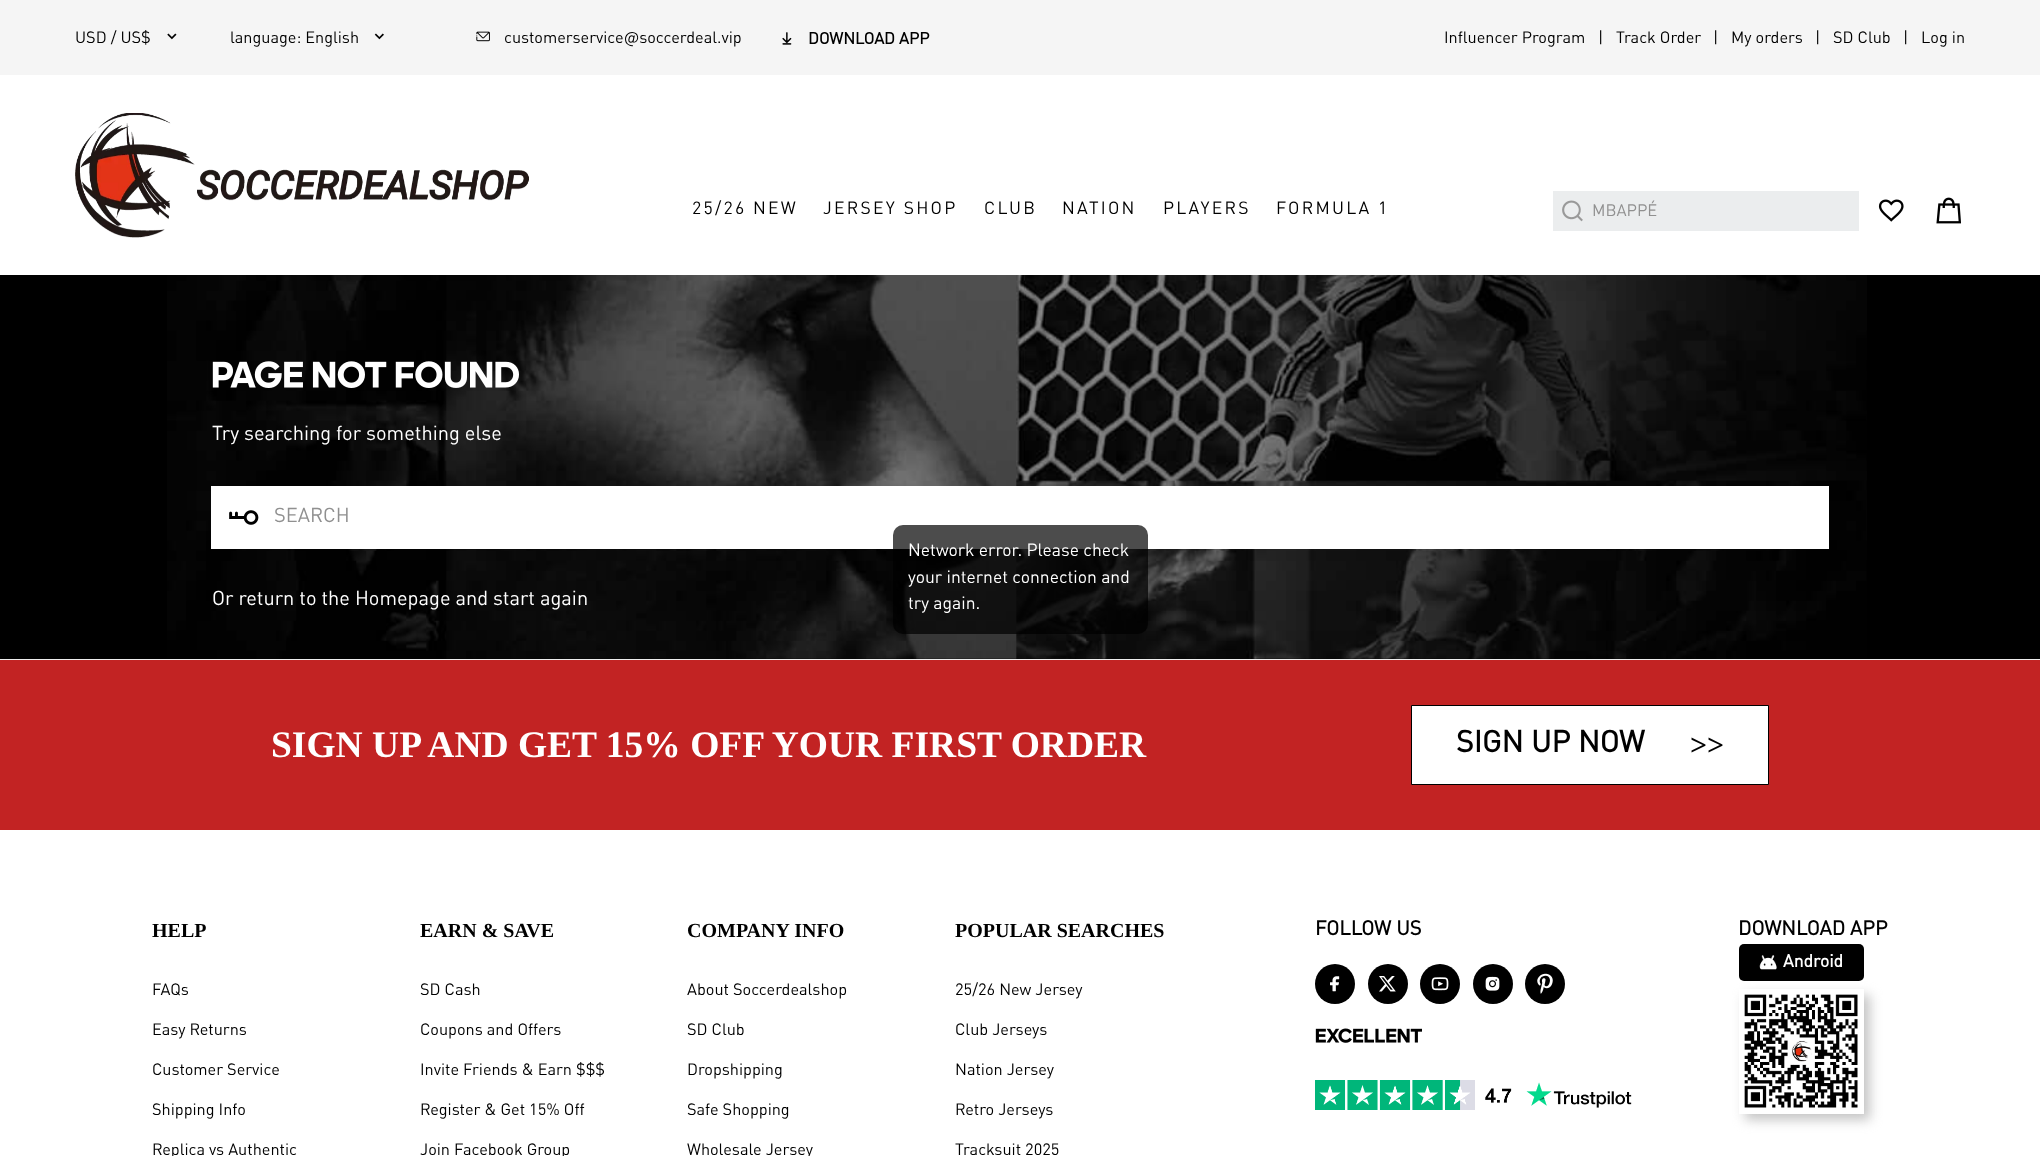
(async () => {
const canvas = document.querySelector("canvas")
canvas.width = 2040
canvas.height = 1156
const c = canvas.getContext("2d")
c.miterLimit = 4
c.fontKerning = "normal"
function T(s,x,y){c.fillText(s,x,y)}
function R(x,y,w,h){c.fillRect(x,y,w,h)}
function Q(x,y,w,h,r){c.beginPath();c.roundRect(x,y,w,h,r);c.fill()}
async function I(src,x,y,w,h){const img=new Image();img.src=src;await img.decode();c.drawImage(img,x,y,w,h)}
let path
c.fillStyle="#fff"
R(0,0,2040,1156)
c.fillStyle="#f5f5f5"
R(0,0,2040,75)
c.font="16.25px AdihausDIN"
c.fillStyle="#000"
T("USD / US$",75,43)
await I("1.png",167,33,10,7)
T("language: English",230,43)
await I("2.png",374,33,10,7)
await I("3.png",476,31,14,11)
T("customerservice@soccerdeal.vip",504,43)
await I("4.png",782,32,10,13)
c.font="bold 16.25px AdihausDIN"
T("DOWNLOAD APP",808,44)
c.font="16.25px AdihausDIN"
T("Influencer Program",1444,43)
T("|",1598,43)
T("Track Order",1616,43)
T("|",1713,43)
T("My orders",1731,43)
T("|",1815,43)
T("SD Club",1833,43)
T("|",1903,43)
T("Log in",1921,43)
await I("5.png",75,113,454,125)
c.letterSpacing="2.25px"
c.font="17.5px AdihausDIN"
T("25/26 NEW",692,214)
T("JERSEY SHOP",823,214)
T("CLUB",984,214)
T("NATION",1062,214)
T("PLAYERS",1163,214)
T("FORMULA 1",1276,214)
c.fillStyle="#ebedee"
R(1553,191,306,40)
await I("6.png",1562,200,21,22)
c.letterSpacing="0px"
c.font="16.5px AdihausDIN"
c.fillStyle="#909090"
T("MBAPPÉ",1592,216)
await I("7.png",1878,199,26,23)
await I("8.png",1936,197,25,27)
c.fillStyle="#000"
R(0,275,2040,384)
await I("9.png",167,275,1700,384)
await I("10.png",212,361,307,27)
c.font="20px AdihausDIN"
c.fillStyle="#fff"
T("Try searching for something else",212,440)
R(211,486,1618,63)
await I("11.png",229,510,30,15)
c.fillStyle="#909090"
T("SEARCH",274,522)
c.fillStyle="#fff"
T("Or return to the Homepage and start again",212,605)
c.fillStyle="#ededed"
R(0,659,2040,1)
c.fillStyle="#c22323"
R(0,660,2040,170)
c.font="bold 37.5px Liberation Serif"
c.fillStyle="#fff"
T("SIGN UP AND GET 15% OFF YOUR FIRST ORDER",271,757)
c.beginPath()
c.rect(1411.5,705.5,357,79)
c.fill()
c.strokeStyle="#000"
c.stroke()
c.font="bold 30px AdihausDIN"
c.fillStyle="#000"
T("SIGN UP NOW",1456,752)
c.font="bold 30px Liberation Serif"
T(">>",1690,755)
c.font="bold 20px Liberation Serif"
T("HELP",152,937)
c.font="16.25px AdihausDIN"
T("FAQs",152,995)
T("Easy Returns",152,1035)
T("Customer Service",152,1075)
T("Shipping Info",152,1115)
T("Replica vs Authentic",152,1155)
c.font="bold 20px Liberation Serif"
T("EARN & SAVE",420,937)
c.font="16.25px AdihausDIN"
T("SD Cash",420,995)
T("Coupons and Offers",420,1035)
T("Invite Friends & Earn $$$",420,1075)
T("Register & Get 15% Off",420,1115)
T("Join Facebook Group",420,1155)
c.font="bold 20px Liberation Serif"
T("COMPANY INFO",687,937)
c.font="16.25px AdihausDIN"
T("About Soccerdealshop",687,995)
T("SD Club",687,1035)
T("Dropshipping",687,1075)
T("Safe Shopping",687,1115)
T("Wholesale Jersey",687,1155)
c.font="bold 20px Liberation Serif"
T("POPULAR SEARCHES",955,937)
c.font="16.25px AdihausDIN"
T("25/26 New Jersey",955,995)
T("Club Jerseys",955,1035)
T("Nation Jersey",955,1075)
T("Retro Jerseys",955,1115)
T("Tracksuit 2025",955,1155)
c.font="bold 20px AdihausDIN"
T("FOLLOW US",1315,935)
c.beginPath()
c.arc(1335,984,20,0,7)
c.fill()
await I("12.png",1330,976,10,16)
c.beginPath()
c.arc(1388,984,20,0,7)
c.fill()
await I("13.png",1379,976,17,16)
c.beginPath()
c.arc(1440,984,20,0,7)
c.fill()
await I("14.png",1431,977,18,14)
c.beginPath()
c.arc(1493,984,20,0,7)
c.fill()
await I("15.png",1485,976,15,15)
c.beginPath()
c.arc(1545,984,20,0,7)
c.fill()
await I("16.png",1537,973,16,21)
await I("17.png",1315,1028,107,15)
await I("18.png",1315,1080,317,30)
T("DOWNLOAD APP",1738,935)
Q(1739,944,125,37,5)
await I("19.png",1759,955,18,15)
c.font="bold 17.5px AdihausDIN"
c.fillStyle="#fff"
T("Android",1783,967)
c.save()
path = new Path2D("M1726 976h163v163h-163zm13 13h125v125h-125z")
c.clip(path,"evenodd")
c.fillStyle="#c5c5c5"
c.filter="blur(6px)"
c.beginPath()
c.rect(1745,995,125,125)
c.fill()
c.filter="none"
c.restore()
await I("20.png",1744,994,120,120)
c.fillStyle="#000000b3"
Q(893,525,255,109,10)
c.font="17.5px AdihausDIN"
c.fillStyle="#fff"
T("Network error. Please check",908,556)
T("your internet connection and",908,583)
T("try again.",908,609)
})()
